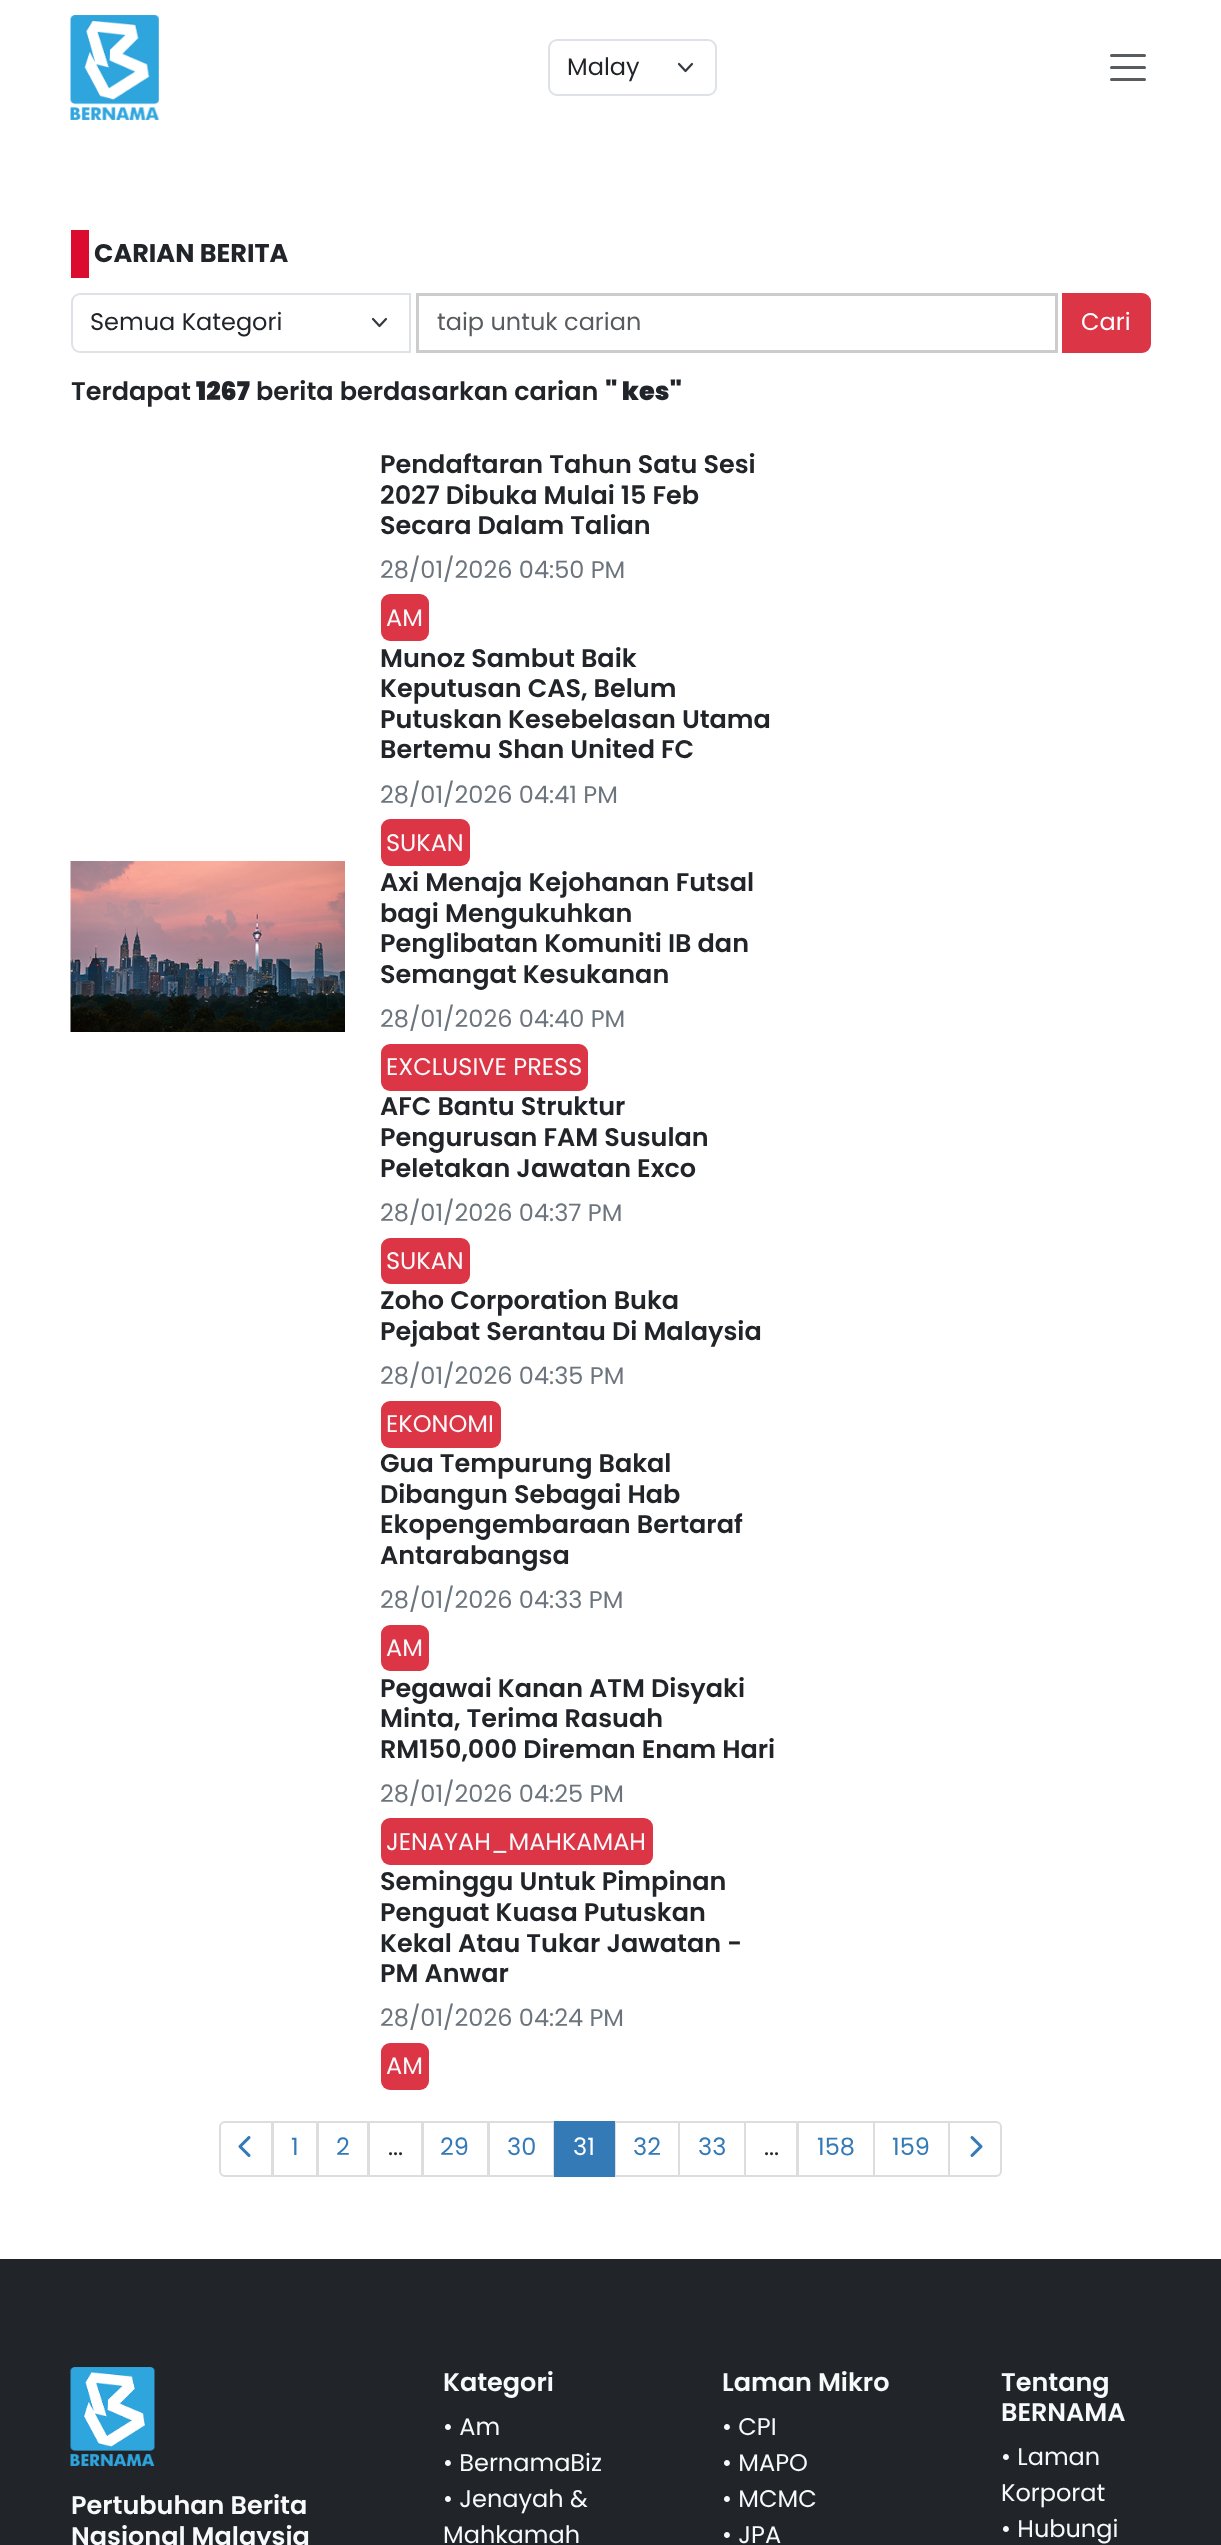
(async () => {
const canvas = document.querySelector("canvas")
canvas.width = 1221
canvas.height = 2545
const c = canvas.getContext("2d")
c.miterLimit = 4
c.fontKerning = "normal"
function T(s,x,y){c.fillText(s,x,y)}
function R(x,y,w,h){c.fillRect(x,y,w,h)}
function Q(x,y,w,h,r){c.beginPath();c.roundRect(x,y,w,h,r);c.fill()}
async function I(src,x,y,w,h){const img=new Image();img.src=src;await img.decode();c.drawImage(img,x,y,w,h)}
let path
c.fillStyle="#fff"
R(0,0,1221,2545)
await I("1.png",70,15,89,105)
path = new Path2D("M679 64l6.5 7l6.5-7")
c.strokeStyle="#343a40"
c.lineWidth=2.2
c.lineCap="round"
c.lineJoin="round"
c.stroke(path)
c.beginPath()
c.roundRect(549,40,167,55,8)
c.strokeStyle="#dee2e6"
c.lineWidth=2
c.lineJoin="miter"
c.stroke()
c.font="24px Poppins"
c.fillStyle="#212529"
T("Malay",567,75)
path = new Path2D("M1111.5 55.5h33m-33 12h33m-33 12h33")
c.strokeStyle="#595c5f"
c.lineWidth=3
c.stroke(path)
c.fillStyle="#dd0a30"
R(71,230,18,48)
c.font="bold 25.5px Poppins"
c.fillStyle="#212529"
T("CARIAN BERITA",94,262)
path = new Path2D("M373 319l6.5 7l6.5-7")
c.strokeStyle="#343a40"
c.lineWidth=2.2
c.lineJoin="round"
c.stroke(path)
c.beginPath()
c.roundRect(72,294,338,58,[8,0,0,8])
c.strokeStyle="#dee2e6"
c.lineWidth=2
c.lineJoin="miter"
c.stroke()
c.font="24px Poppins"
T("Semua Kategori",90,330)
c.strokeStyle="#ccc"
c.lineWidth=3
c.strokeRect(417.5,294.5,639,57)
c.fillStyle="#595c5f"
T("taip untuk carian",437,330)
c.fillStyle="#dc3545"
c.beginPath()
c.roundRect(1063,294,87,58,[0,8,8,0])
c.fill()
c.strokeStyle="#dc3545"
c.lineWidth=2
c.stroke()
c.fillStyle="#fff"
T("Cari",1081,330)
c.font="600 25.5px Poppins"
c.fillStyle="#212529"
T("Terdapat",71,400)
c.font="900 25.5px Poppins"
T("1267",196,400)
c.font="600 25.5px Poppins"
T("berita berdasarkan carian",256,400)
c.font="900 25.5px Poppins"
T("\" kes\"",605,400)
c.font="600 25.5px Poppins"
T("Pendaftaran Tahun Satu Sesi",380,473)
T("2027 Dibuka Mulai 15 Feb",380,504)
T("Secara Dalam Talian",380,534)
c.font="24px Poppins"
c.fillStyle="#6c757d"
T("28/01/2026 04:50 PM",380,578)
c.fillStyle="#dc3545"
Q(381,594,48,47,9)
c.fillStyle="#f8f9fa"
T("AM",386,626)
c.font="600 25.5px Poppins"
c.fillStyle="#212529"
T("Munoz Sambut Baik",380,667)
T("Keputusan CAS, Belum",380,697)
T("Putuskan Kesebelasan Utama",380,728)
T("Bertemu Shan United FC",380,758)
c.font="24px Poppins"
c.fillStyle="#6c757d"
T("28/01/2026 04:41 PM",380,803)
c.fillStyle="#dc3545"
Q(381,819,89,47,9)
c.fillStyle="#f8f9fa"
T("SUKAN",386,851)
await I("2.png",70,861,275,171)
c.font="600 25.5px Poppins"
c.fillStyle="#212529"
T("Axi Menaja Kejohanan Futsal",380,891)
T("bagi Mengukuhkan",380,922)
T("Penglibatan Komuniti IB dan",380,952)
T("Semangat Kesukanan",380,983)
c.font="24px Poppins"
c.fillStyle="#6c757d"
T("28/01/2026 04:40 PM",380,1027)
c.fillStyle="#dc3545"
Q(381,1044,207,47,9)
c.fillStyle="#f8f9fa"
T("EXCLUSIVE PRESS",386,1075)
c.font="600 25.5px Poppins"
c.fillStyle="#212529"
T("AFC Bantu Struktur",380,1115)
T("Pengurusan FAM Susulan",380,1146)
T("Peletakan Jawatan Exco",380,1177)
c.font="24px Poppins"
c.fillStyle="#6c757d"
T("28/01/2026 04:37 PM",380,1221)
c.fillStyle="#dc3545"
Q(381,1238,89,46,9)
c.fillStyle="#f8f9fa"
T("SUKAN",386,1269)
c.font="600 25.5px Poppins"
c.fillStyle="#212529"
T("Zoho Corporation Buka",380,1309)
T("Pejabat Serantau Di Malaysia",380,1340)
c.font="24px Poppins"
c.fillStyle="#6c757d"
T("28/01/2026 04:35 PM",380,1384)
c.fillStyle="#dc3545"
Q(381,1401,120,47,9)
c.fillStyle="#f8f9fa"
T("EKONOMI",386,1432)
c.font="600 25.5px Poppins"
c.fillStyle="#212529"
T("Gua Tempurung Bakal",380,1472)
T("Dibangun Sebagai Hab",380,1503)
T("Ekopengembaraan Bertaraf",380,1533)
T("Antarabangsa",380,1564)
c.font="24px Poppins"
c.fillStyle="#6c757d"
T("28/01/2026 04:33 PM",380,1608)
c.fillStyle="#dc3545"
Q(381,1625,48,46,9)
c.fillStyle="#f8f9fa"
T("AM",386,1656)
c.font="600 25.5px Poppins"
c.fillStyle="#212529"
T("Pegawai Kanan ATM Disyaki",380,1697)
T("Minta, Terima Rasuah",380,1727)
T("RM150,000 Direman Enam Hari",380,1758)
c.font="24px Poppins"
c.fillStyle="#6c757d"
T("28/01/2026 04:25 PM",380,1802)
c.fillStyle="#dc3545"
Q(381,1818,272,47,9)
c.fillStyle="#f8f9fa"
T("JENAYAH_MAHKAMAH",386,1850)
c.font="600 25.5px Poppins"
c.fillStyle="#212529"
T("Seminggu Untuk Pimpinan",380,1890)
T("Penguat Kuasa Putuskan",380,1921)
T("Kekal Atau Tukar Jawatan -",380,1952)
T("PM Anwar",380,1982)
c.font="24px Poppins"
c.fillStyle="#6c757d"
T("28/01/2026 04:24 PM",380,2026)
c.fillStyle="#dc3545"
Q(381,2043,48,47,9)
c.fillStyle="#f8f9fa"
T("AM",386,2074)
c.beginPath()
c.roundRect(220,2122,52,54,[5,0,0,5])
c.strokeStyle="#ddd"
c.stroke()
await I("3.png",238,2136,13,21)
c.strokeRect(273,2122,44,54)
c.fillStyle="#337ab7"
T("1",291,2155)
c.strokeRect(318,2122,50,54)
T("2",336,2155)
c.strokeRect(369,2122,53,54)
c.fillStyle="#212529"
T("...",388,2155)
c.strokeRect(423,2122,65,54)
c.fillStyle="#337ab7"
T("29",440,2155)
c.strokeRect(489,2122,65,54)
T("30",507,2155)
c.strokeRect(615,2122,64,54)
R(554,2121,61,56)
c.fillStyle="#fff"
T("31",573,2155)
c.fillStyle="#337ab7"
T("32",633,2155)
c.strokeRect(679,2122,66,54)
T("33",698,2155)
c.strokeRect(745,2122,52,54)
c.fillStyle="#212529"
T("...",764,2155)
c.strokeRect(798,2122,76,54)
c.fillStyle="#337ab7"
T("158",817,2155)
c.strokeRect(874,2122,75,54)
T("159",892,2155)
c.fillStyle="#fff"
c.beginPath()
c.roundRect(949,2122,52,54,[0,5,5,0])
c.fill()
c.stroke()
await I("4.png",970,2136,13,21)
c.fillStyle="#212529"
R(0,2259,1221,286)
await I("5.png",70,2367,85,99)
c.font="600 25.5px Poppins"
c.fillStyle="#f8f9fa"
T("Pertubuhan Berita",71,2514)
T("Nasional Malaysia",71,2545)
T("Kategori",443,2391)
c.font="24px Poppins"
T("• Am",443,2435)
T("• BernamaBiz",443,2471)
T("• Jenayah &",443,2507)
T("Mahkamah",443,2543)
c.font="600 25.5px Poppins"
T("Laman Mikro",722,2391)
c.font="24px Poppins"
T("• CPI",722,2435)
T("• MAPO",722,2471)
T("• MCMC",722,2507)
T("• JPA",722,2543)
c.font="600 25.5px Poppins"
T("Tentang",1001,2391)
T("BERNAMA",1001,2421)
c.font="24px Poppins"
T("• Laman",1001,2465)
T("Korporat",1001,2501)
T("• Hubungi",1001,2537)
})()
